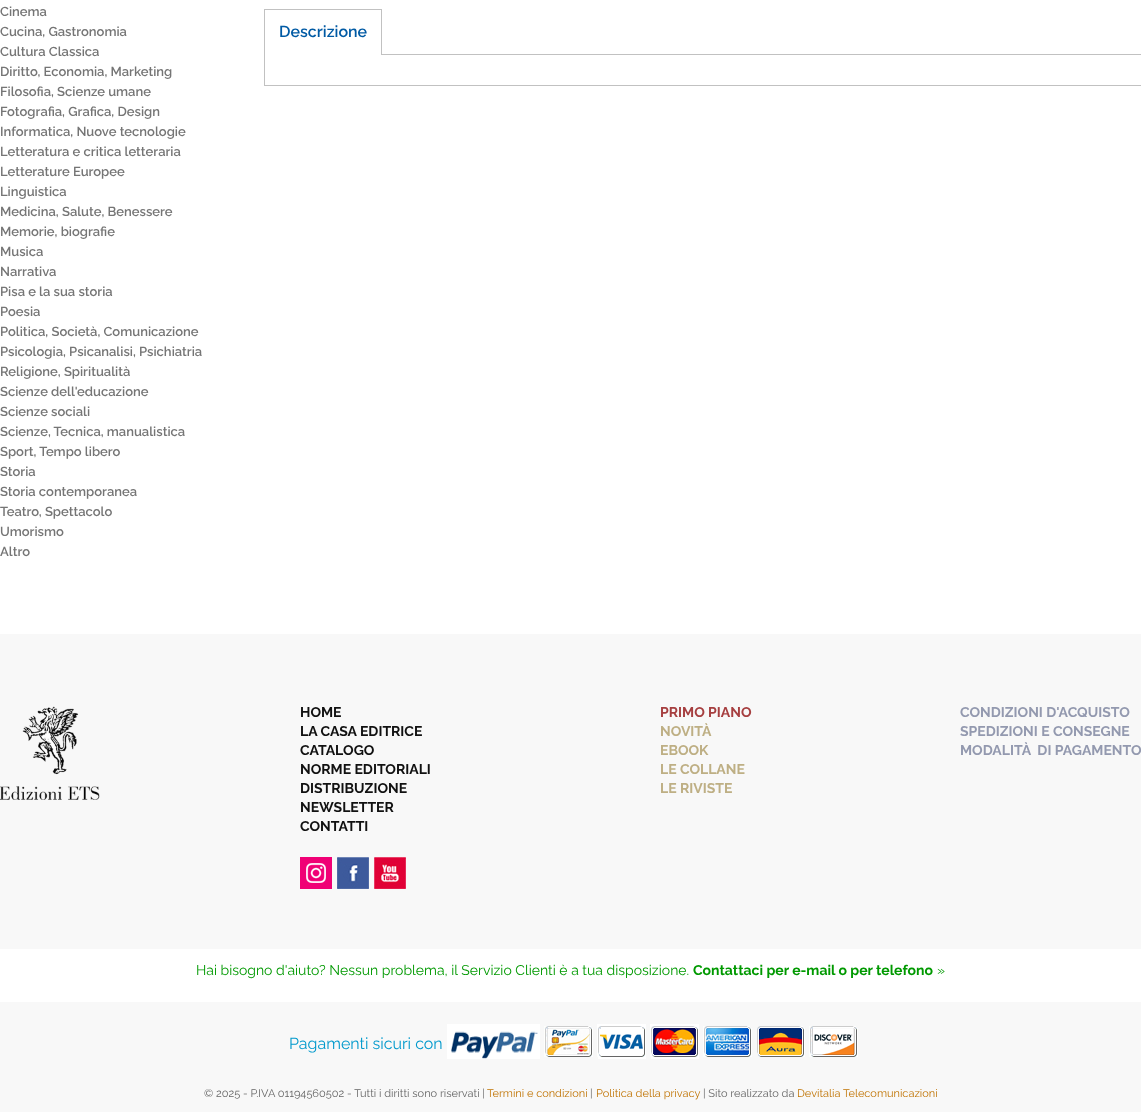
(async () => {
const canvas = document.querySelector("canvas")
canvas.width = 1141
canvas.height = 1112
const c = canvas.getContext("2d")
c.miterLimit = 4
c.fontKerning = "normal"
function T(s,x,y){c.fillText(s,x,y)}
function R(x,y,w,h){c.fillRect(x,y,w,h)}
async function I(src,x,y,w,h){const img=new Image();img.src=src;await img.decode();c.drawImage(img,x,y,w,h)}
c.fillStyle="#fff"
R(0,0,1141,1112)
c.font="600 13px Raleway"
c.fillStyle="#757575"
T("Cinema",0,16)
T("Cucina, Gastronomia",0,36)
T("Cultura Classica",0,56)
T("Diritto, Economia, Marketing",0,76)
T("Filosofia, Scienze umane",0,96)
T("Fotografia, Grafica, Design",0,116)
T("Informatica, Nuove tecnologie",0,136)
T("Letteratura e critica letteraria",0,156)
T("Letterature Europee",0,176)
T("Linguistica",0,196)
T("Medicina, Salute, Benessere",0,216)
T("Memorie, biografie",0,236)
T("Musica",0,256)
T("Narrativa",0,276)
T("Pisa e la sua storia",0,296)
T("Poesia",0,316)
T("Politica, Società, Comunicazione",0,336)
T("Psicologia, Psicanalisi, Psichiatria",0,356)
T("Religione, Spiritualità",0,376)
T("Scienze dell'educazione",0,396)
T("Scienze sociali",0,416)
T("Scienze, Tecnica, manualistica",0,436)
T("Sport, Tempo libero",0,456)
T("Storia",0,476)
T("Storia contemporanea",0,496)
T("Teatro, Spettacolo",0,516)
T("Umorismo",0,536)
T("Altro",0,556)
c.strokeStyle="#c1c1c1"
c.strokeRect(264.5,54.5,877,31)
c.fillStyle="#fff"
R(265,54,116,1)
c.fillStyle="#c1c1c1"
R(264,9,118,1)
R(381,9,1,46)
R(264,9,1,46)
c.font="600 16px Raleway"
c.fillStyle="#005aa4"
T("Descrizione",279,37)
c.fillStyle="#f8f8f8"
R(0,634,1141,478)
await I("1.png",0,706,100,94)
c.font="bold 14px Raleway"
c.fillStyle="#111"
T("HOME",300,717)
T("LA CASA EDITRICE",300,736)
T("CATALOGO",300,755)
T("NORME EDITORIALI",300,774)
T("DISTRIBUZIONE",300,793)
T("NEWSLETTER",300,812)
T("CONTATTI",300,831)
await I("2.png",300,857,32,32)
await I("3.png",337,857,32,32)
await I("4.png",374,857,32,32)
c.fillStyle="#a63f40"
T("PRIMO PIANO",660,717)
c.fillStyle="#beaf84"
T("NOVITÀ",660,736)
T("EBOOK",660,755)
T("LE COLLANE",660,774)
T("LE RIVISTE",660,793)
c.fillStyle="#9399af"
T("CONDIZIONI D'ACQUISTO",960,717)
T("SPEDIZIONI E CONSEGNE",960,736)
T("MODALITÀ  DI PAGAMENTO",960,755)
c.fillStyle="#fff"
R(0,949,1141,53)
c.font="14px Raleway"
c.fillStyle="#090"
T("Hai bisogno d'aiuto? Nessun problema, il Servizio Clienti è a tua disposizione.",196,975)
c.font="bold 14px Raleway"
T("Contattaci per e-mail o per telefono",693,975)
c.font="14px Raleway"
T("»",937,975)
c.font="16px Raleway"
c.fillStyle="#09c"
T("Pagamenti sicuri con",289,1049)
await I("5.png",447,1024,93,35)
await I("6.png",544,1026,49,31)
await I("7.png",597,1024,49,35)
await I("8.png",650,1024,49,35)
await I("9.png",703,1026,49,31)
await I("10.png",757,1026,48,31)
await I("11.png",809,1026,49,31)
c.font="11px Raleway"
c.fillStyle="#666"
T("© 2025 - P.IVA 01194560502 - Tutti i diritti sono riservati |",204,1097)
c.fillStyle="#c07404"
T("Termini e condizioni",487,1097)
c.fillStyle="#666"
T("|",590,1097)
c.fillStyle="#c07404"
T("Politica della privacy",596,1097)
c.fillStyle="#666"
T("| Sito realizzato da",703,1097)
c.fillStyle="#c07404"
T("Devitalia Telecomunicazioni",797,1097)
})()
